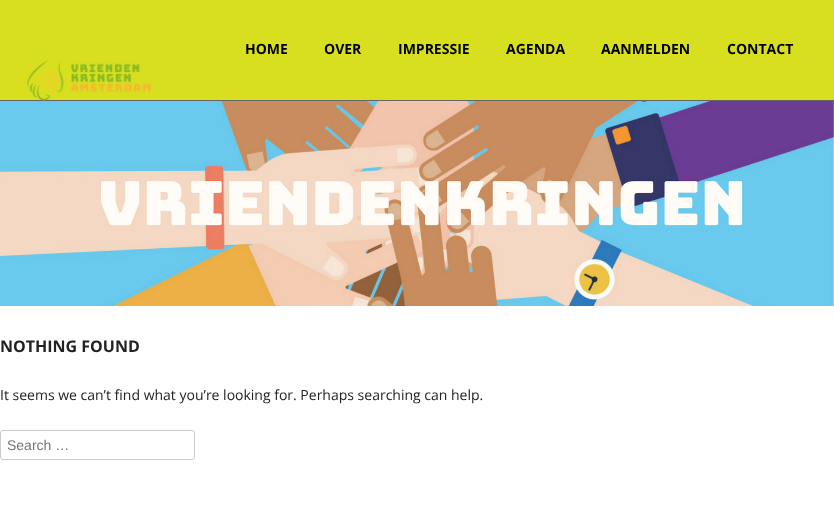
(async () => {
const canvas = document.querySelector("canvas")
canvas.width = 834
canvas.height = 530
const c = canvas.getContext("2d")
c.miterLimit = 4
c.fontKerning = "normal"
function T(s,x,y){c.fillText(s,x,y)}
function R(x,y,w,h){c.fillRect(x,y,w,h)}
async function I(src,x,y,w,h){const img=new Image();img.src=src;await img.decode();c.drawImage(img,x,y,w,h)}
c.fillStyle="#fff"
R(0,0,834,530)
c.fillStyle="#d8df1f"
R(0,0,834,100)
c.fillStyle="#666"
R(0,100,834,1)
c.font="bold 14px Open Sans"
c.fillStyle="#000"
T("HOME",245,54)
T("OVER",324,54)
T("IMPRESSIE",398,54)
T("AGENDA",506,54)
T("AANMELDEN",601,54)
T("CONTACT",727,54)
await I("1.png",15,60,136,41)
await I("2.png",0,101,834,205)
c.font="bold 16px Open Sans"
c.fillStyle="#222"
T("NOTHING FOUND",0,352)
c.font="14px Open Sans"
T("It seems we can’t find what you’re looking for. Perhaps searching can help.",0,400)
c.beginPath()
c.roundRect(.5,430.5,194,29,2.5)
c.strokeStyle="#ccc"
c.stroke()
c.font="14px Liberation Sans"
c.fillStyle="#757575"
T("Search …",7,450)
})()
